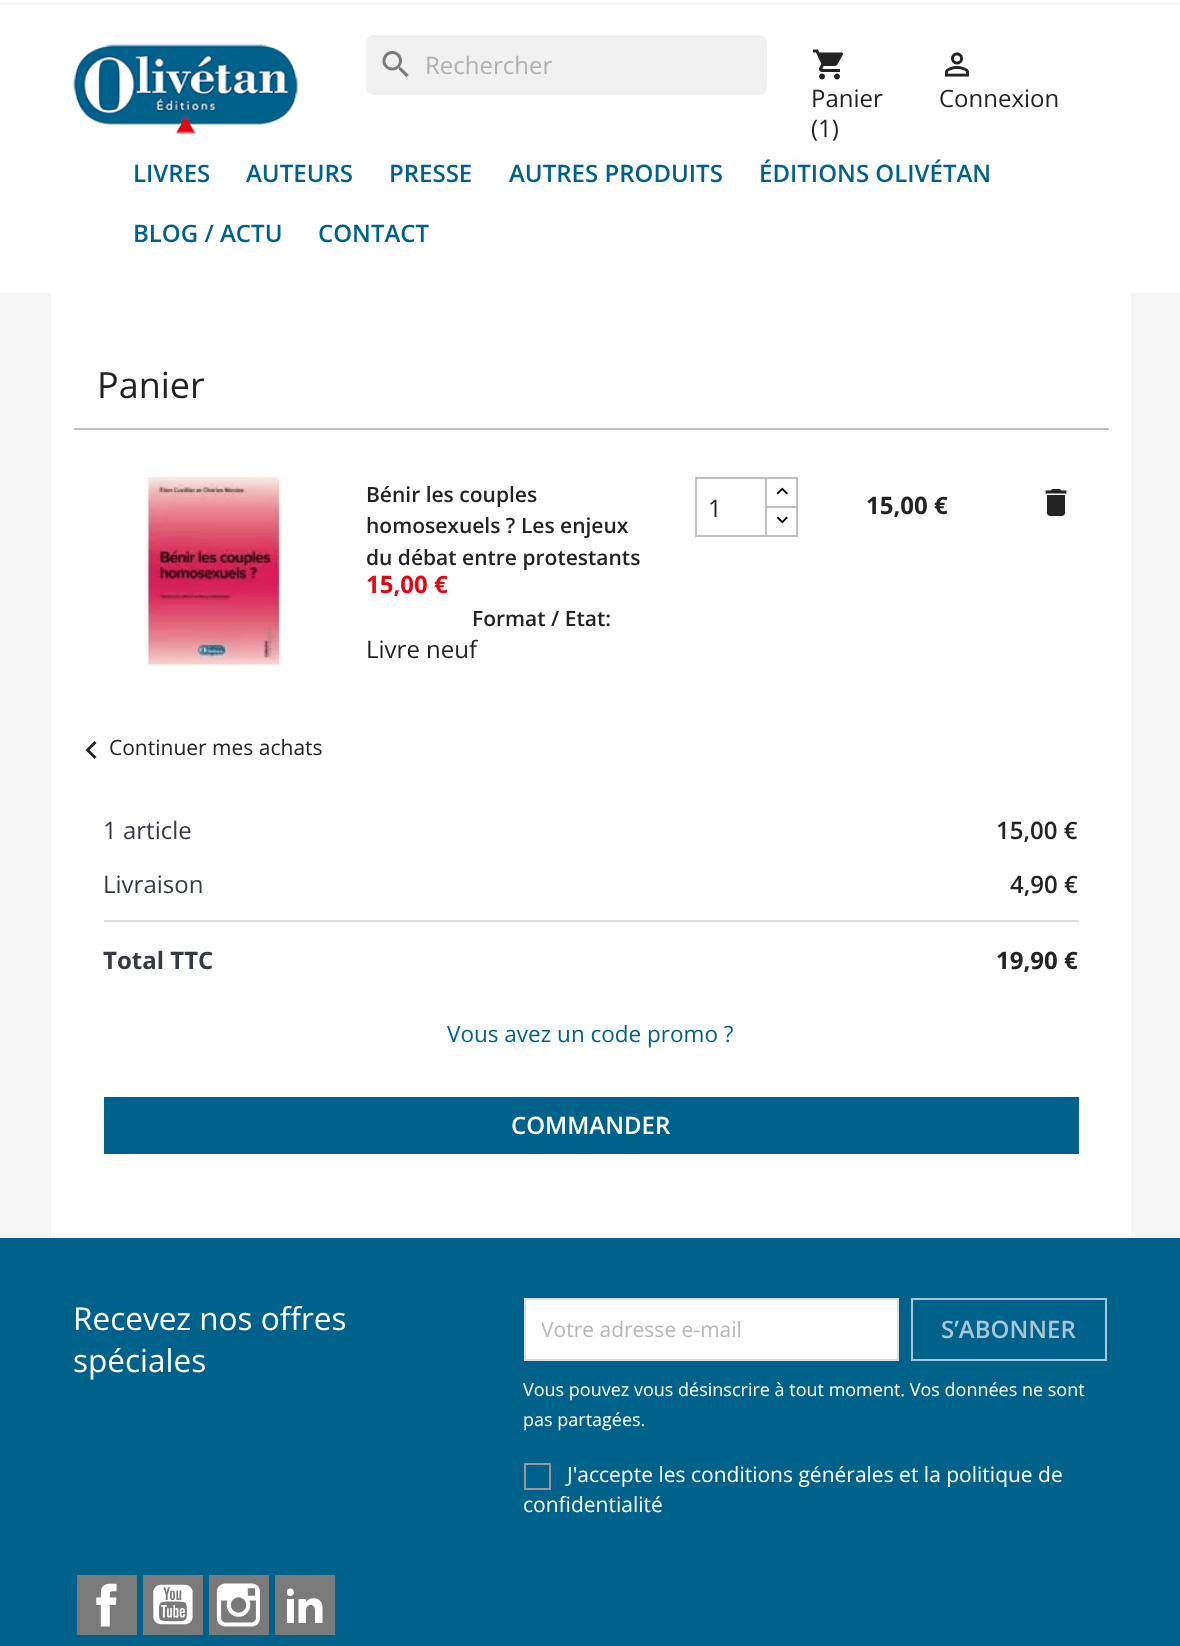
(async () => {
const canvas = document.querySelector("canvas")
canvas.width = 1180
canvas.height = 1646
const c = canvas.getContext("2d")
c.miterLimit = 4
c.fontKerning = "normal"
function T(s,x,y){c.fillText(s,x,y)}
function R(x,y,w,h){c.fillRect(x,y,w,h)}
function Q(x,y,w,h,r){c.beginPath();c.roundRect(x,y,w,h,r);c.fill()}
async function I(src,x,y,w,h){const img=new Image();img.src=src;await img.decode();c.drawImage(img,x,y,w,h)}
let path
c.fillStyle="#fff"
R(0,0,1180,1646)
c.fillStyle="#f6f6f6"
R(0,2,1180,3)
await I("1.png",73,44,225,90)
c.fillStyle="#f1f1f1"
Q(366,35,401,60,8)
await I("2.png",382,51,27,27)
c.font="24px Open Sans"
c.fillStyle="#b1b1b1"
T("Rechercher",425,74)
await I("3.png",812,49,31,31)
c.fillStyle="#232323"
T("Panier",811,107)
T("(1)",811,137)
await I("4.png",944,52,26,25)
T("Connexion",939,107)
c.font="600 24px Open Sans"
c.fillStyle="#00618b"
T("LIVRES",133,182)
T("AUTEURS",246,182)
T("PRESSE",389,182)
T("AUTRES PRODUITS",509,182)
T("ÉDITIONS OLIVÉTAN",759,182)
T("BLOG / ACTU",133,242)
T("CONTACT",318,242)
c.fillStyle="#f6f6f6"
R(0,293,1180,945)
c.fillStyle="#fff"
R(51,293,1080,945)
c.font="36px Open Sans"
c.fillStyle="#232323"
T("Panier",97,398)
c.fillStyle="#bfbfbf"
R(74,428,1035,2)
await I("5.png",144,477,144,188)
c.font="600 21px Open Sans"
c.fillStyle="#232323"
T("Bénir les couples",366,502)
T("homosexuels ? Les enjeux",366,533)
T("du débat entre protestants",366,565)
c.font="bold 24px Open Sans"
c.fillStyle="#e30713"
T("15,00 €",366,593)
c.font="600 21px Open Sans"
c.fillStyle="#232323"
T("Format / Etat:",472,626)
c.font="24px Open Sans"
T("Livre neuf",366,658)
c.strokeStyle="#bfbfbf"
c.lineWidth=2
c.strokeRect(766,478,31,30)
c.fillStyle="#fff"
R(767,508,29,1)
c.strokeRect(766,507,31,29)
c.strokeRect(696,478,70,58)
c.fillStyle="#232323"
T("1",708,517)
await I("6.png",776,487,12,8)
await I("7.png",776,516,12,8)
c.font="bold 24px Open Sans"
T("15,00 €",866,514)
await I("8.png",1045,489,22,27)
path = new Path2D("M96.5 743l-7 7l7 7l-2 2l-9-9l9-9z")
c.fill(path)
c.font="21px Open Sans"
T("Continuer mes achats",109,755)
c.font="24px Open Sans"
c.fillStyle="#363a42"
T("1 article",103,839)
c.font="600 24px Open Sans"
c.fillStyle="#232323"
T("15,00 €",996,839)
c.font="24px Open Sans"
c.fillStyle="#363a42"
T("Livraison",103,893)
c.font="600 24px Open Sans"
c.fillStyle="#232323"
T("4,90 €",1010,893)
c.fillStyle="#ddd"
R(104,920,975,2)
c.font="bold 24px Open Sans"
c.fillStyle="#363a42"
T("Total TTC",103,969)
c.fillStyle="#232323"
T("19,90 €",996,969)
c.font="22.5px Open Sans"
c.fillStyle="#00618b"
T("Vous avez un code promo ?",447,1042)
R(104,1097,975,57)
c.font="600 24px Open Sans"
c.fillStyle="#fff"
T("COMMANDER",511,1134)
c.fillStyle="#00618b"
R(0,1238,1180,408)
c.font="31.5px Open Sans"
c.fillStyle="#fff"
T("Recevez nos offres",73,1330)
T("spéciales",73,1372)
c.beginPath()
c.rect(525,1299,373,61)
c.fill()
c.strokeStyle="#ddd"
c.stroke()
c.save()
c.beginPath()
c.rect(542,1314,339,29)
c.clip()
c.font="21px Open Sans"
c.fillStyle="#b7b7b7"
T("Votre adresse e-mail",541,1337)
c.restore()
c.strokeStyle="#a6c8d6"
c.strokeRect(912,1299,194,61)
c.font="600 24px Open Sans"
c.fillStyle="#a6c8d6"
T("S’ABONNER",941,1338)
c.font="18px Open Sans"
c.fillStyle="#fff"
T("Vous pouvez vous désinscrire à tout moment. Vos données ne sont",523,1396)
T("pas partagées.",523,1426)
c.strokeStyle="#979797"
c.strokeRect(525,1464,25,25)
c.font="21px Open Sans"
T("J'accepte les conditions générales et la politique de",567,1482)
T("confidentialité",523,1512)
c.fillStyle="#7a7a7a"
R(77,1575,60,60)
await I("9.png",96,1583,21,44)
R(143,1575,60,60)
await I("10.png",153,1584,40,41)
R(209,1575,60,60)
await I("11.png",216,1583,44,44)
R(275,1575,60,60)
await I("12.png",287,1588,36,35)
})()
